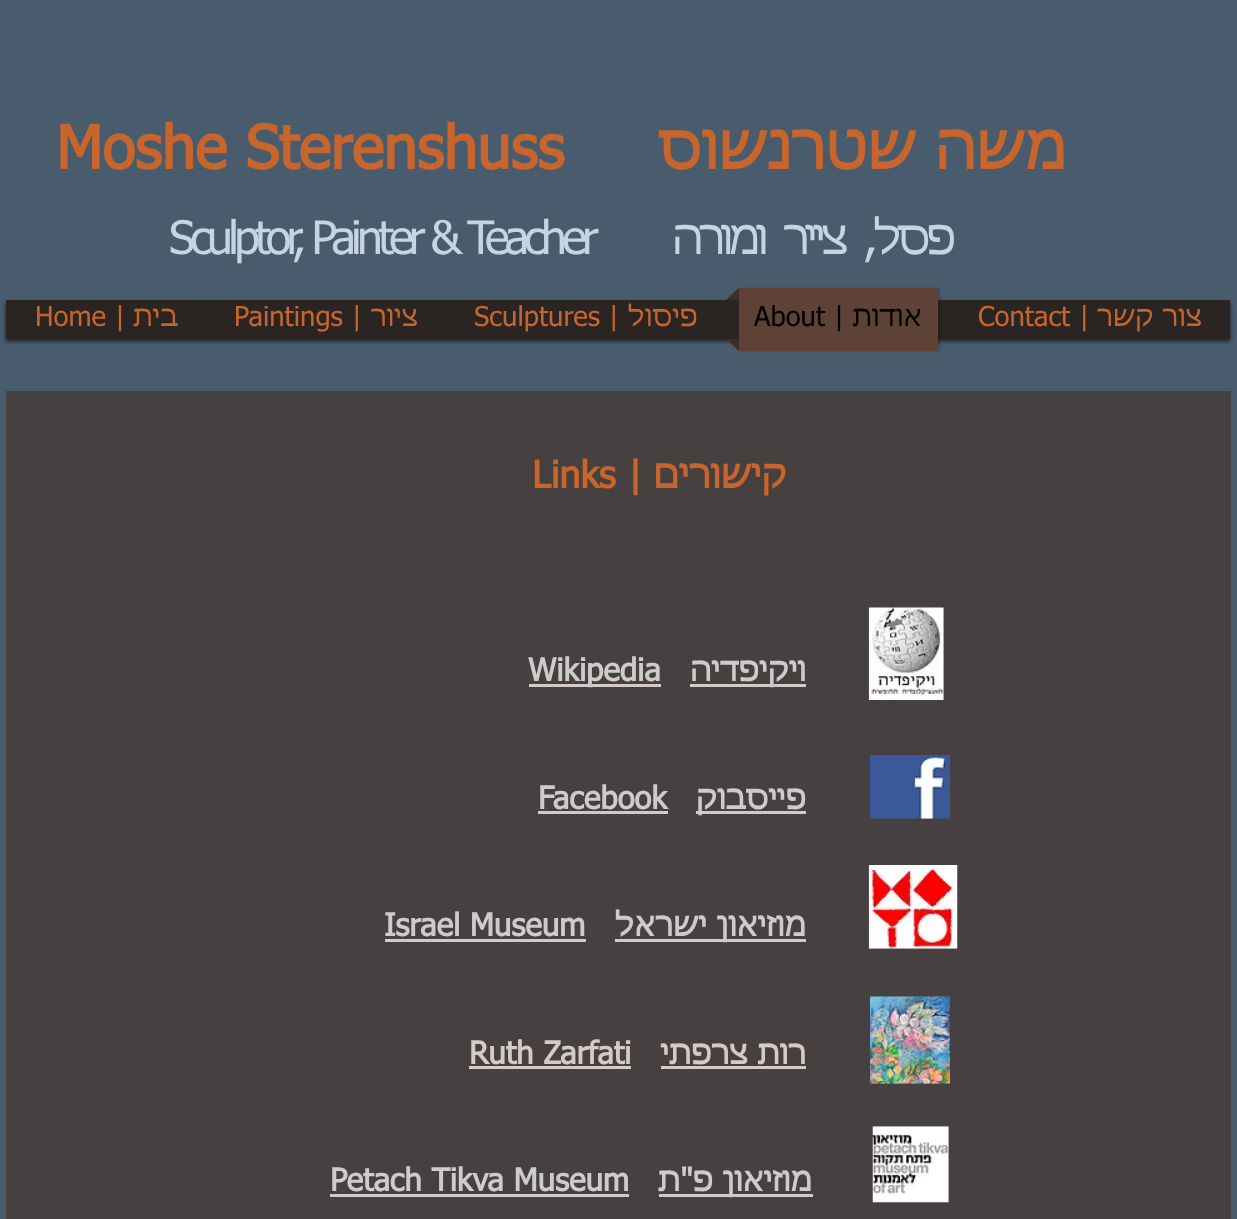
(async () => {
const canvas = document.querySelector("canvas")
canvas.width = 1237
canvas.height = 1219
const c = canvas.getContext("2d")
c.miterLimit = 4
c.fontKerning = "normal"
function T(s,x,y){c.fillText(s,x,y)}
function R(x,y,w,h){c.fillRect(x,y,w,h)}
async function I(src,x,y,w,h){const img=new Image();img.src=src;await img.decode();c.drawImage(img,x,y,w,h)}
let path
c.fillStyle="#485c6e"
R(0,0,1237,1219)
c.font="bold 60px tahoma"
c.fillStyle="#c7652d"
T("Moshe Sterenshuss",56,169)
c.direction="rtl"
c.font="bold 60px 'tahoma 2'"
T("משה שטרנשוס",1066,169)
c.letterSpacing="-4.6px"
c.direction="ltr"
c.font="46.25px tahoma"
c.fillStyle="#c7d5e1"
T("Sculptor, Painter & Teacher",169,254)
c.direction="rtl"
c.font="46.25px 'tahoma 2'"
T("ומורה",764,254)
T("צייר",844,254)
c.font="46.25px tahoma"
T(",",873,254)
c.font="46.25px 'tahoma 2'"
T("פסל",952,254)
c.fillStyle="#000000b3"
c.filter="blur(2px)"
c.beginPath()
c.rect(6,303,1224,38)
c.fill()
c.filter="none"
c.fillStyle="#2a2522"
R(6,300,1224,39)
c.letterSpacing="0px"
c.direction="ltr"
c.font="27.5px tahoma"
c.fillStyle="#c7652d"
T("Home |",35,326)
c.direction="rtl"
c.font="27.5px 'tahoma 2'"
T("בית",178,326)
c.direction="ltr"
c.font="27.5px tahoma"
T("Paintings |",234,326)
c.direction="rtl"
c.font="27.5px 'tahoma 2'"
T("ציור",418,326)
c.direction="ltr"
c.font="27.5px tahoma"
T("Sculptures |",474,326)
c.direction="rtl"
c.font="27.5px 'tahoma 2'"
T("פיסול",698,326)
c.fillStyle="#00000033"
c.filter="blur(1px)"
c.beginPath()
c.rect(741,288,199,63)
c.fill()
c.filter="none"
c.fillStyle="#422e25"
path = new Path2D("M739 300h-13l13-12.5z")
c.fill(path)
c.fillStyle="#5e4235"
R(739,288,199,63)
c.fillStyle="#422e25"
path = new Path2D("M726 339h13v12z")
c.fill(path)
c.direction="ltr"
c.font="27.5px tahoma"
c.fillStyle="#000"
T("About |",754,326)
c.direction="rtl"
c.font="27.5px 'tahoma 2'"
T("אודות",922,326)
c.direction="ltr"
c.font="27.5px tahoma"
c.fillStyle="#c7652d"
T("Contact |",978,326)
c.direction="rtl"
c.font="27.5px 'tahoma 2'"
T("צור קשר",1202,326)
c.fillStyle="#474040"
R(6,391,1225,828)
c.direction="ltr"
c.font="bold 37.5px tahoma"
c.fillStyle="#c7652d"
T("Links",532,488)
c.direction="rtl"
T("|",642,488)
c.font="bold 37.5px 'tahoma 2'"
T("קישורים",787,488)
c.fillStyle="#d4cbc6"
R(529,684,132,3)
c.direction="ltr"
c.font="bold 31.25px tahoma"
c.fillStyle="#ccc"
T("Wikipedia",528,681)
c.fillStyle="#d4cbc6"
R(690,684,116,3)
c.direction="rtl"
c.font="bold 31.25px 'tahoma 2'"
c.fillStyle="#ccc"
T("ויקיפדיה",806,681)
await I("1.png",868,607,76,93)
c.direction="ltr"
c.font="bold 31.25px tahoma"
T("Facebook",538,809)
R(538,811,130,3)
R(696,811,110,3)
c.direction="rtl"
c.font="bold 31.25px 'tahoma 2'"
T("פייסבוק",806,809)
await I("2.png",870,755,80,64)
c.direction="ltr"
c.font="bold 31.25px tahoma"
T("Israel Museum",384,936)
R(385,939,201,3)
R(615,939,191,3)
c.direction="rtl"
c.font="bold 31.25px 'tahoma 2'"
T("מוזיאון ישראל",806,936)
await I("3.png",868,865,90,84)
c.direction="ltr"
c.font="bold 31.25px tahoma"
c.fillStyle="#d4cbc6"
T("Ruth Zarfati",469,1064)
R(469,1066,162,3)
c.direction="rtl"
c.font="bold 31.25px 'tahoma 2'"
T("רות צרפתי",806,1064)
R(661,1066,145,3)
await I("4.png",870,996,80,88)
c.direction="ltr"
c.font="bold 31.25px tahoma"
c.fillStyle="#ccc"
T("Petach Tikva Museum",330,1191)
R(330,1194,299,3)
R(659,1194,154,3)
c.direction="rtl"
c.font="bold 31.25px 'tahoma 2'"
T("מוזיאון פ\"ת",812,1191)
await I("5.png",872,1126,77,77)
})()
